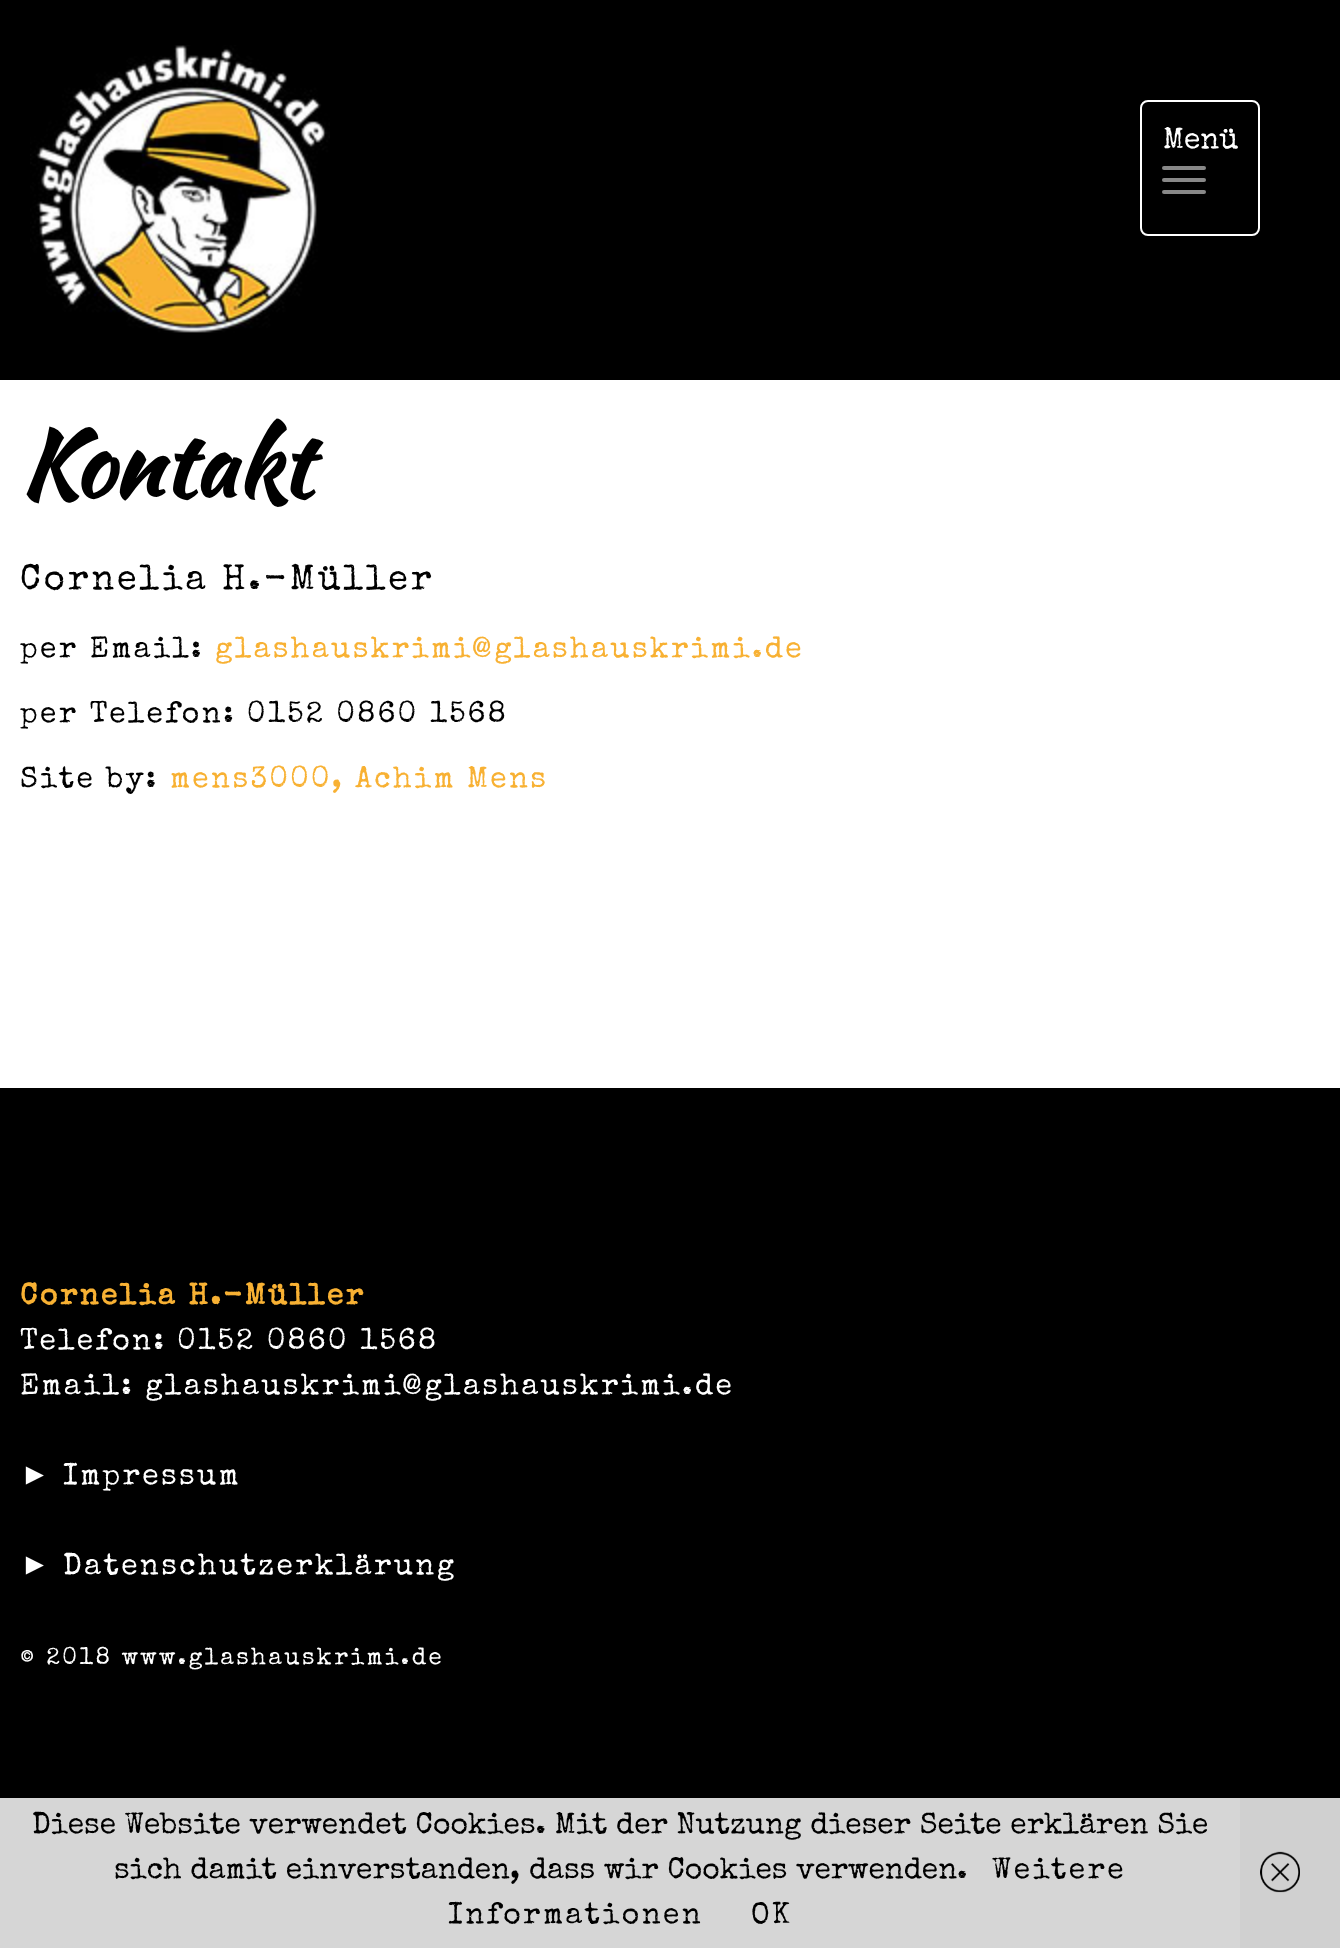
(async () => {
const canvas = document.querySelector("canvas")
canvas.width = 1340
canvas.height = 1948
const c = canvas.getContext("2d")
c.miterLimit = 4
c.fontKerning = "normal"
function T(s,x,y){c.fillText(s,x,y)}
function R(x,y,w,h){c.fillRect(x,y,w,h)}
function Q(x,y,w,h,r){c.beginPath();c.roundRect(x,y,w,h,r);c.fill()}
async function I(src,x,y,w,h){const img=new Image();img.src=src;await img.decode();c.drawImage(img,x,y,w,h)}
c.fillStyle="#fff"
R(0,0,1340,1948)
c.fillStyle="#000"
R(0,0,1340,380)
await I("1.png",30,45,300,288)
c.beginPath()
c.roundRect(1141,101,118,134,7)
c.strokeStyle="#fff"
c.lineWidth=2
c.stroke()
c.font="30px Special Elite"
c.fillStyle="#fff"
T("Menü",1163,148)
c.fillStyle="#888"
Q(1162,166,44,4,2)
Q(1162,178,44,4,2)
Q(1162,190,44,4,2)
c.font="bold 90px Kaushan Script"
c.fillStyle="#000"
T("Kontakt",20,496)
c.letterSpacing="2.9px"
c.font="36px Special Elite"
T("Cornelia H.-Müller",20,589)
c.letterSpacing="2.4px"
c.font="30px Special Elite"
T("per Email:",20,657)
c.fillStyle="#f8b133"
T("glashauskrimi@glashauskrimi.de",215,657)
c.fillStyle="#000"
T("per Telefon: 0152 0860 1568",20,722)
T("Site by:",20,787)
c.fillStyle="#f8b133"
T("mens3000, Achim Mens",170,787)
c.fillStyle="#000"
R(0,1088,1340,710)
c.font="bold 30px Special Elite"
c.fillStyle="#f8b133"
T("Cornelia H.-Müller",20,1304)
c.font="30px Special Elite"
c.fillStyle="#fff"
T("Telefon: 0152 0860 1568",20,1349)
T("Email: glashauskrimi@glashauskrimi.de",20,1394)
c.font="30px Liberation Serif"
T("►",20,1484)
c.font="30px Special Elite"
T("Impressum",63,1484)
c.font="30px Liberation Serif"
T("►",20,1574)
c.font="30px Special Elite"
T("Datenschutzerklärung",63,1574)
c.font="24px Special Elite"
T("© 2018 www.glashauskrimi.de",20,1664)
c.fillStyle="#d6d6d6"
R(0,1798,1240,150)
c.letterSpacing="0px"
c.font="30px Special Elite"
c.fillStyle="#000"
T("Diese Website verwendet Cookies. Mit der Nutzung dieser Seite erklären Sie",32,1833)
T("sich damit einverstanden, dass wir Cookies verwenden.",114,1878)
c.letterSpacing="2.4px"
T("Weitere",992,1878)
T("Informationen",448,1923)
T("OK",751,1923)
c.fillStyle="#d0d0d0"
R(1240,1798,100,150)
await I("2.png",1260,1851,40,42)
})()
